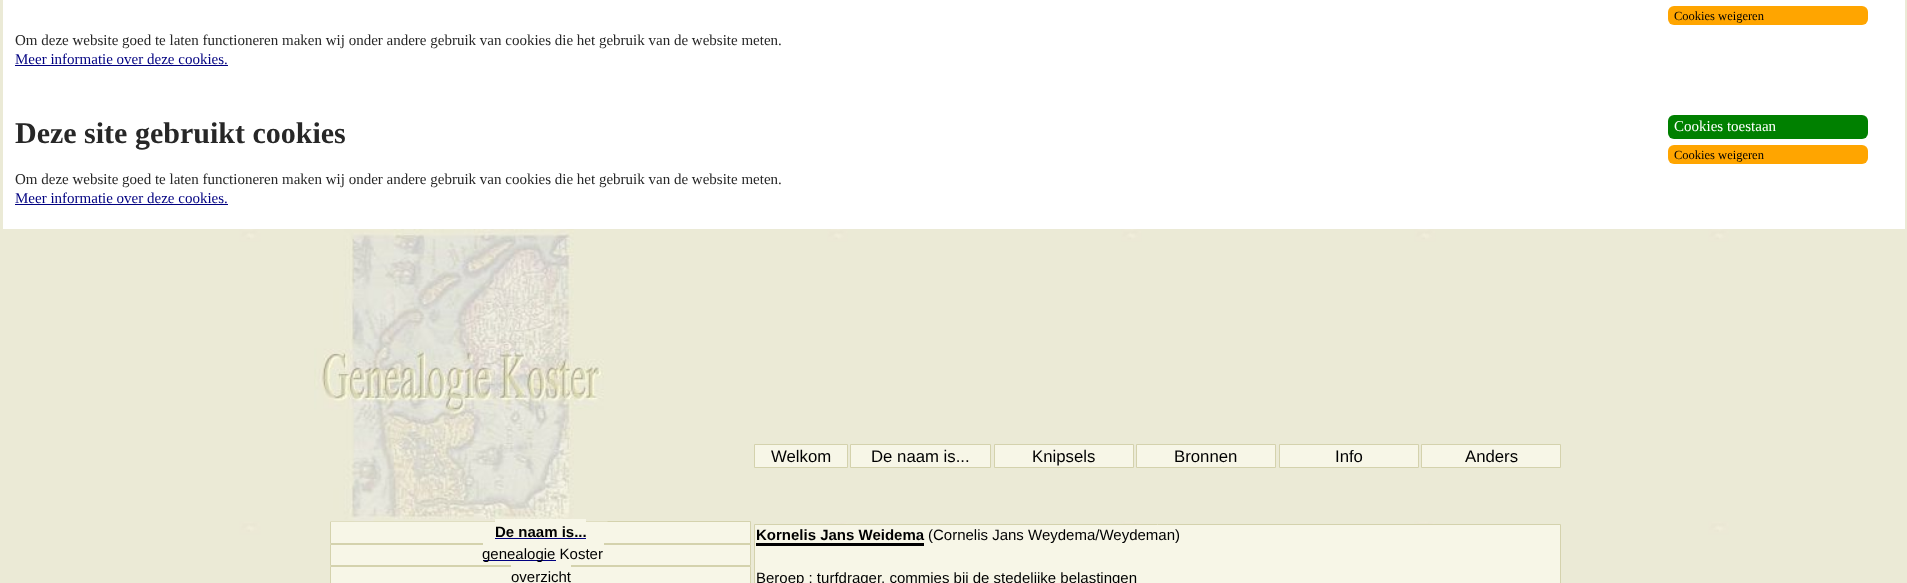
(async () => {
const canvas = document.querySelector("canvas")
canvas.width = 1907
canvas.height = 583
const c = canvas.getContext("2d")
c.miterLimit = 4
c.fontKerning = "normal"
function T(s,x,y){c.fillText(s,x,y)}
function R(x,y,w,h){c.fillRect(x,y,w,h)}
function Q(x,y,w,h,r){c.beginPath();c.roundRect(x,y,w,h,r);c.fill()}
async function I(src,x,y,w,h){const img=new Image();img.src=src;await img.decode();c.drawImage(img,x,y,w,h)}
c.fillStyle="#fff"
R(0,0,1907,583)
await I("1.png",0,0,1907,583)
R(3,0,1902,229)
c.fillStyle="#ffa500"
Q(1668,6,200,19,6)
c.font="12.5px Liberation Serif"
c.fillStyle="#000"
T("Cookies weigeren",1674,20)
c.font="15px Liberation Serif"
c.fillStyle="#272727"
T("Om deze website goed te laten functioneren maken wij onder andere gebruik van cookies die het gebruik van de website meten.",15,45)
c.fillStyle="#000080"
T("Meer informatie over deze cookies.",15,64)
R(15,65,213,1)
c.font="bold 30px Liberation Serif"
c.fillStyle="#272727"
T("Deze site gebruikt cookies",15,143)
c.font="15px Liberation Serif"
T("Om deze website goed te laten functioneren maken wij onder andere gebruik van cookies die het gebruik van de website meten.",15,184)
c.fillStyle="#000080"
T("Meer informatie over deze cookies.",15,203)
R(15,204,213,1)
c.fillStyle="#008000"
Q(1668,115,200,24,6)
c.fillStyle="#fff"
T("Cookies toestaan",1674,131)
c.fillStyle="#ffa500"
Q(1668,145,200,19,6)
c.font="12.5px Liberation Serif"
c.fillStyle="#000"
T("Cookies weigeren",1674,159)
c.fillStyle="#f7f6e7"
c.beginPath()
c.rect(330.5,521.5,420,22)
c.fill()
c.strokeStyle="#d4d2ad"
c.stroke()
await I("2.png",314,229,294,293)
c.beginPath()
c.rect(754.5,444.5,93,23)
c.fill()
c.stroke()
c.font="16.75px Liberation Sans"
c.fillStyle="#000"
T("Welkom",771,462)
c.fillStyle="#f7f6e7"
c.beginPath()
c.rect(850.5,444.5,140,23)
c.fill()
c.stroke()
c.fillStyle="#000"
T("De naam is...",871,462)
c.fillStyle="#f7f6e7"
c.beginPath()
c.rect(994.5,444.5,139,23)
c.fill()
c.stroke()
c.fillStyle="#000"
T("Knipsels",1032,462)
c.fillStyle="#f7f6e7"
c.beginPath()
c.rect(1136.5,444.5,139,23)
c.fill()
c.stroke()
c.fillStyle="#000"
T("Bronnen",1174,462)
c.fillStyle="#f7f6e7"
c.beginPath()
c.rect(1279.5,444.5,139,23)
c.fill()
c.stroke()
c.fillStyle="#000"
T("Info",1335,462)
c.fillStyle="#f7f6e7"
c.beginPath()
c.rect(1421.5,444.5,139,23)
c.fill()
c.stroke()
c.fillStyle="#000"
T("Anders",1465,462)
c.font="bold 15px Liberation Sans"
T("De naam is...",495,537)
c.fillStyle="#f7f6e7"
R(495,519,91,3)
c.fillStyle="#000080"
R(495,538,91,1)
c.fillStyle="#f7f6e7"
c.beginPath()
c.rect(330.5,544.5,420,21)
c.fill()
c.stroke()
c.fillStyle="#000080"
R(483,560,73,1)
c.font="15px Liberation Sans"
c.fillStyle="#000"
T("genealogie Koster",482,559)
c.fillStyle="#f7f6e7"
R(483,543,121,2)
c.beginPath()
c.rect(330.5,566.5,420,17)
c.fill()
c.stroke()
c.fillStyle="#000"
T("overzicht",511,582)
c.fillStyle="#f7f6e7"
R(511,565,60,2)
c.beginPath()
c.rect(754.5,524.5,806,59)
c.fill()
c.stroke()
c.font="bold 15px Liberation Sans"
c.fillStyle="#000"
T("Kornelis Jans Weidema",756,540)
R(756,543,168,3)
c.font="15px Liberation Sans"
T("(Cornelis Jans Weydema/Weydeman)",928,540)
T("Beroep : turfdrager, commies bij de stedelijke belastingen",756,583)
})()
